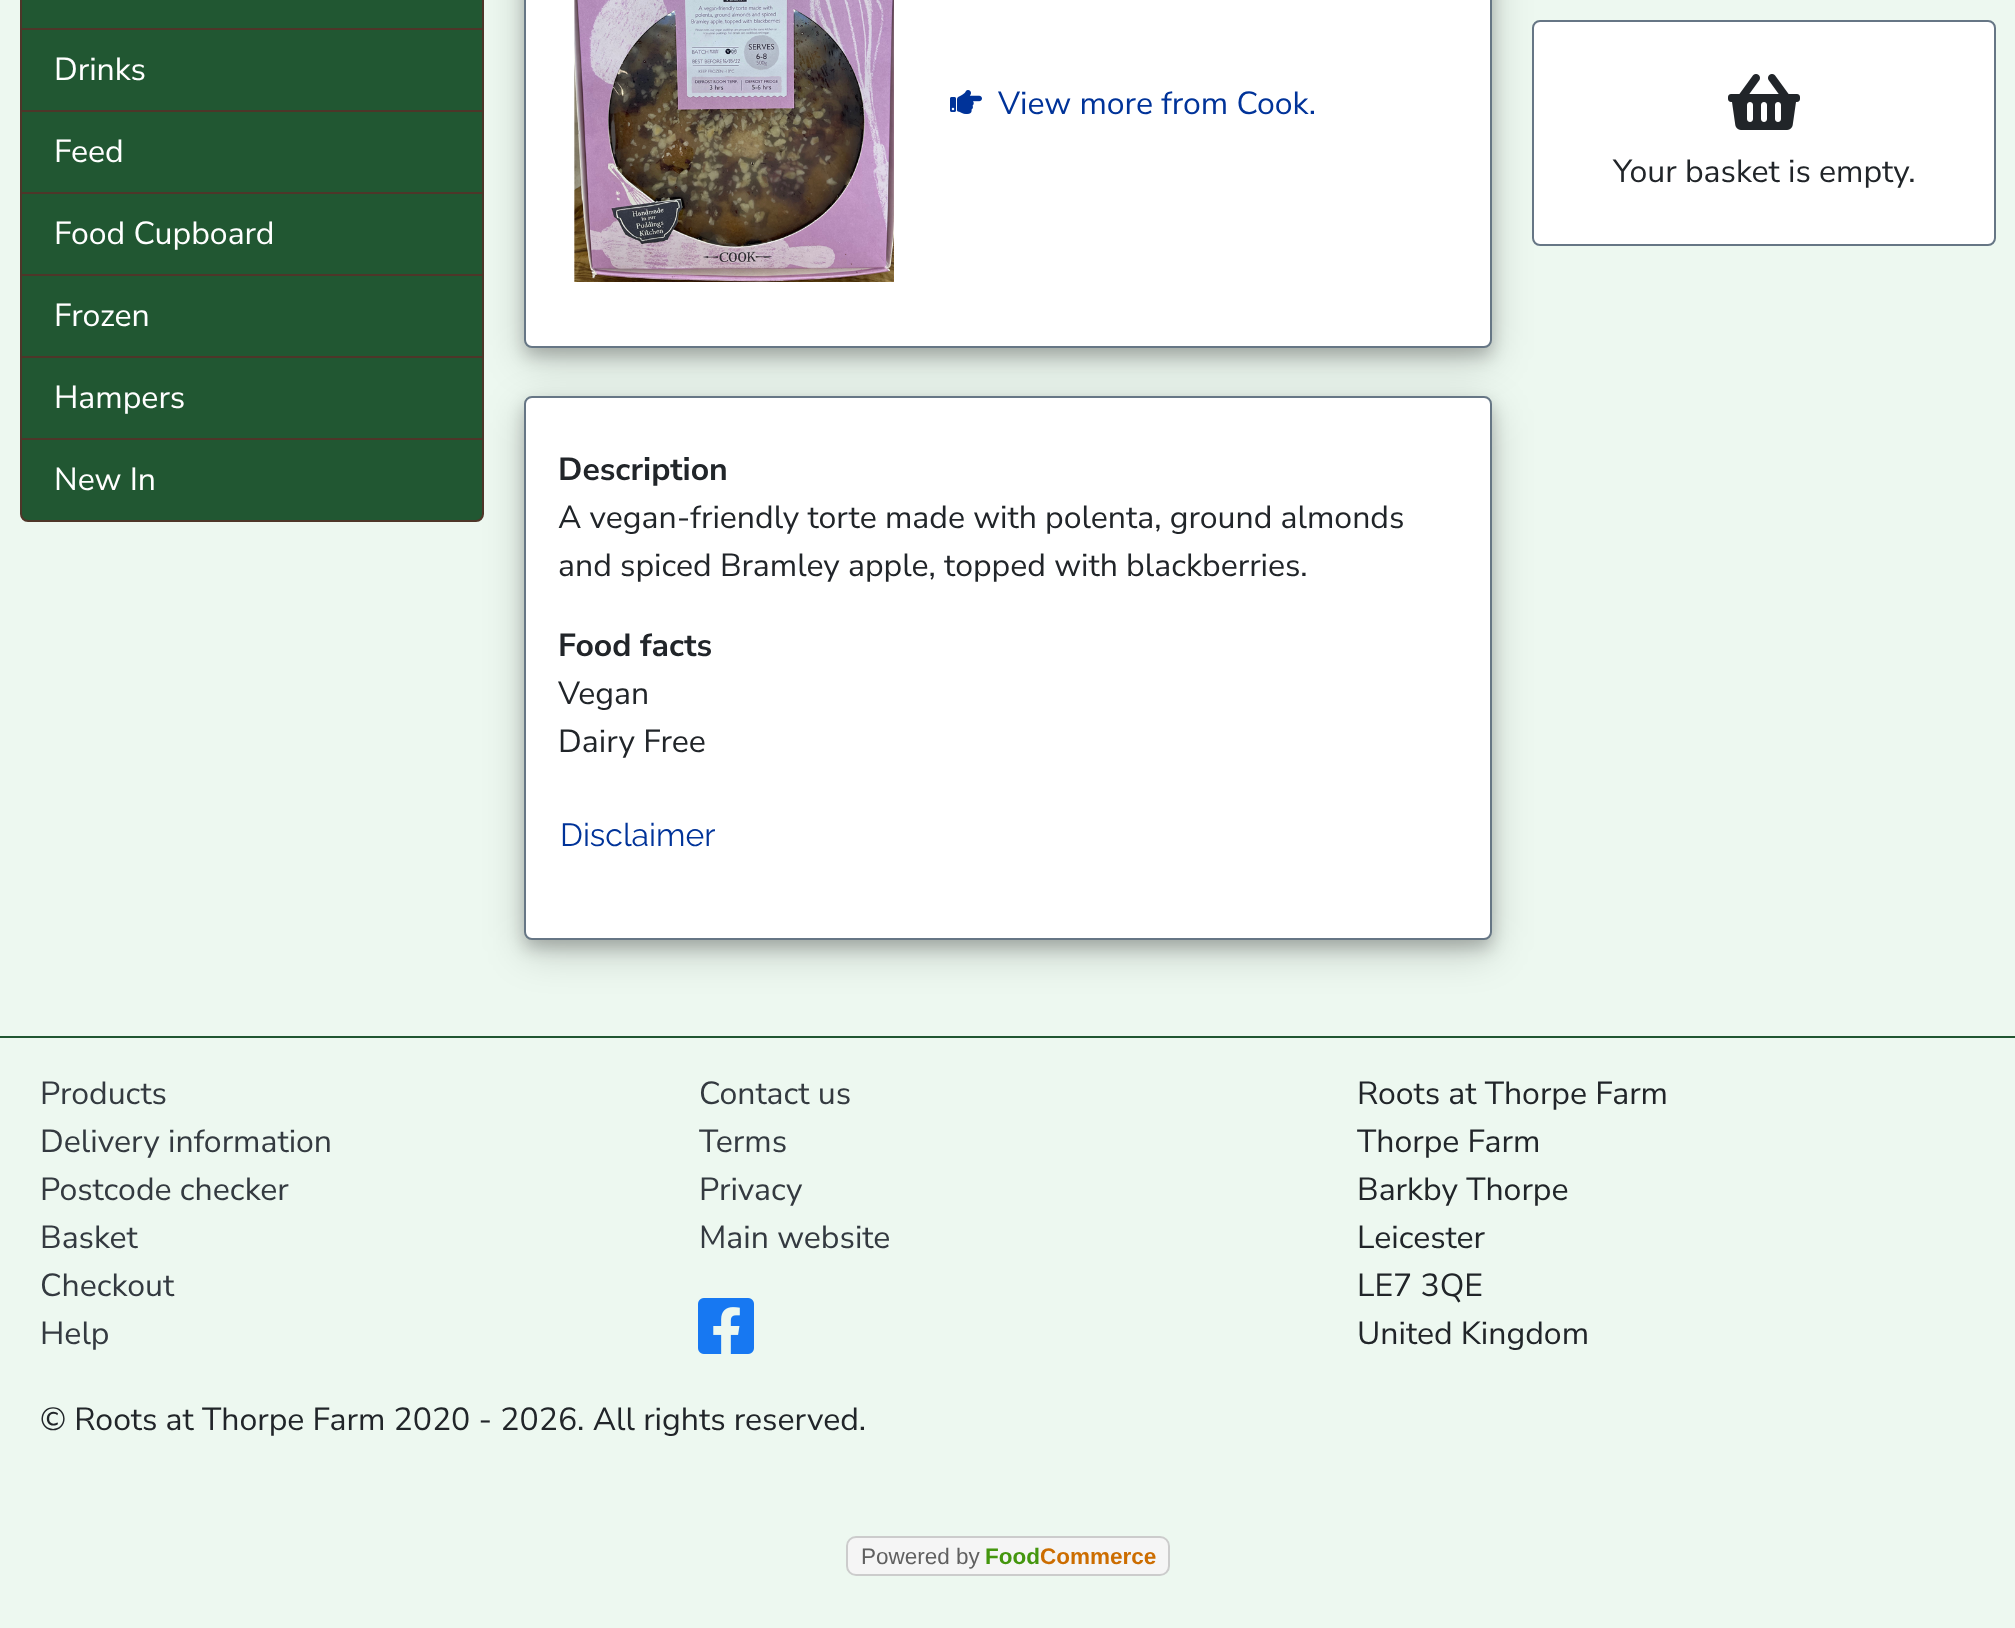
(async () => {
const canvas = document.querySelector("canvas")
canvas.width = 2015
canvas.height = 1628
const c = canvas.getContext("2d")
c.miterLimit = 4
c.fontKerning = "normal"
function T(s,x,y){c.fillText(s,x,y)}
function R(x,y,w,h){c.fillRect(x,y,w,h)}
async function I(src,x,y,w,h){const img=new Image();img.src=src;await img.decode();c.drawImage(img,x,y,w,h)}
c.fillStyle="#edf8f0"
R(0,0,2015,1628)
c.fillStyle="#215732"
c.beginPath()
c.roundRect(21,-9,462,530,7)
c.fill()
c.strokeStyle="#4e3629"
c.lineWidth=2
c.stroke()
c.fillStyle="#4e3629"
R(22,28,460,2)
R(22,110,460,2)
c.font="32px Nunito Sans"
c.fillStyle="#fff"
T("Drinks",54,80)
c.fillStyle="#4e3629"
R(22,192,460,2)
c.fillStyle="#fff"
T("Feed",54,162)
c.fillStyle="#4e3629"
R(22,274,460,2)
c.fillStyle="#fff"
T("Food Cupboard",54,244)
c.fillStyle="#4e3629"
R(22,356,460,2)
c.fillStyle="#fff"
T("Frozen",54,326)
c.fillStyle="#4e3629"
R(22,438,460,2)
c.fillStyle="#fff"
T("Hampers",54,408)
T("New In",54,490)
c.fillStyle="#00000030"
c.filter="blur(20px)"
c.beginPath()
c.roundRect(524,-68,968,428,8)
c.fill()
c.filter="none"
c.fillStyle="#00000033"
c.filter="blur(8px)"
c.beginPath()
c.roundRect(524,-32,968,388,8)
c.fill()
c.filter="none"
c.fillStyle="#fff"
c.beginPath()
c.roundRect(525,-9,966,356,7)
c.fill()
c.strokeStyle="#667685"
c.stroke()
await I("1.png",574,0,320,282)
await I("2.png",950,90,32,24)
c.fillStyle="#039"
T("View more from Cook.",998,114)
c.fillStyle="#00000030"
c.filter="blur(20px)"
c.beginPath()
c.roundRect(524,408,968,544,8)
c.fill()
c.filter="none"
c.fillStyle="#00000033"
c.filter="blur(8px)"
c.beginPath()
c.roundRect(524,404,968,544,8)
c.fill()
c.filter="none"
c.fillStyle="#fff"
c.beginPath()
c.roundRect(525,397,966,542,7)
c.fill()
c.stroke()
c.font="bold 32px Nunito Sans"
c.fillStyle="#212529"
T("Description",558,480)
c.font="32px Nunito Sans"
T("A vegan-friendly torte made with polenta, ground almonds",558,528)
T("and spiced Bramley apple, topped with blackberries.",558,576)
c.font="bold 32px Nunito Sans"
T("Food facts",558,656)
c.font="32px Nunito Sans"
T("Vegan",558,704)
T("Dairy Free",558,752)
c.font="32px Raleway"
c.fillStyle="#039"
T("Disclaimer",560,846)
c.fillStyle="#fff"
c.beginPath()
c.roundRect(1533,21,462,224,7)
c.fill()
c.stroke()
await I("3.png",1728,74,72,56)
c.font="32px Nunito Sans"
c.fillStyle="#212529"
T("Your basket is empty.",1613,182)
c.fillStyle="#215732"
R(0,1036,2015,2)
c.fillStyle="#343a40"
T("Products",40,1104)
T("Delivery information",40,1152)
T("Postcode checker",40,1200)
T("Basket",40,1248)
T("Checkout",40,1296)
T("Help",40,1344)
T("Contact us",699,1104)
T("Terms",699,1152)
T("Privacy",699,1200)
T("Main website",699,1248)
await I("4.png",698,1298,56,56)
c.fillStyle="#212529"
T("Roots at Thorpe Farm",1357,1104)
T("Thorpe Farm",1357,1152)
T("Barkby Thorpe",1357,1200)
T("Leicester",1357,1248)
T("LE7 3QE",1357,1296)
T("United Kingdom",1357,1344)
T("© Roots at Thorpe Farm 2020 - 2026. All rights reserved.",40,1430)
c.fillStyle="#f5f5f5"
c.beginPath()
c.roundRect(847,1537,322,38,9)
c.fill()
c.strokeStyle="#ccc"
c.stroke()
c.font="22.5px Liberation Sans"
c.fillStyle="#606060"
T("Powered by",861,1564)
c.font="bold 22.5px Liberation Sans"
c.fillStyle="#44960e"
T("Food",985,1564)
c.fillStyle="#cc6d00"
T("Commerce",1040,1564)
})()
